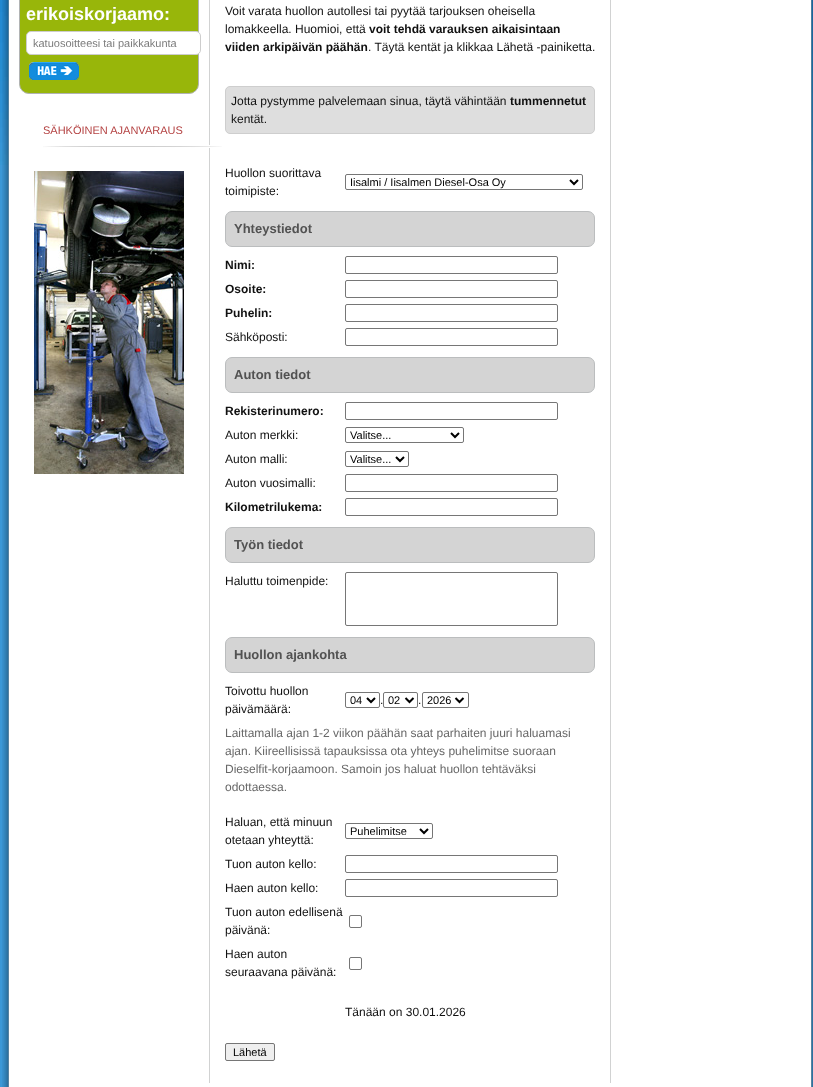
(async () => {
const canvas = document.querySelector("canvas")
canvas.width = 813
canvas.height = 1087
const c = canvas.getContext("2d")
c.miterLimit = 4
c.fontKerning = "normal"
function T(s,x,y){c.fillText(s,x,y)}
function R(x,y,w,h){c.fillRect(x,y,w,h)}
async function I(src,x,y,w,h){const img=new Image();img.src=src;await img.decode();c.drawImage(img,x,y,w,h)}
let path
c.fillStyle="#3c98d7"
R(0,0,813,1087)
await I("1.png",0,0,813,165)
await I("2.png",2,0,7,1087)
c.fillStyle="#fff"
R(9,0,802,1087)
c.fillStyle="#98b60a"
c.beginPath()
c.roundRect(19.5,-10.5,179,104,9.5)
c.fill()
c.strokeStyle="#b1b3b4"
c.stroke()
c.font="bold 18px Liberation Sans"
c.fillStyle="#fff"
T("erikoiskorjaamo:",26,20)
c.beginPath()
c.roundRect(26.5,31.5,174,23,4.5)
c.fill()
c.strokeStyle="#cdcdcd"
c.stroke()
c.font="11px Liberation Sans"
c.fillStyle="#7c7c7c"
T("katuosoitteesi tai paikkakunta",33,47)
await I("3.png",29,62,50,18)
c.fillStyle="#b44242"
T("SÄHKÖINEN AJANVARAUS",43,134)
c.fillStyle="#d1d2d2"
R(209,0,1,1083)
await I("4.png",43,145,179,3)
await I("5.png",34,171,150,303)
R(610,0,1,1083)
c.font="12px Liberation Sans"
c.fillStyle="#111"
T("Voit varata huollon autollesi tai pyytää tarjouksen oheisella",225,15)
T("lomakkeella. Huomioi, että",225,33)
c.font="bold 12px Liberation Sans"
T("voit tehdä varauksen aikaisintaan",369,33)
T("viiden arkipäivän päähän",225,51)
c.font="12px Liberation Sans"
T(". Täytä kentät ja klikkaa Lähetä -painiketta.",368,51)
c.fillStyle="#dedede"
c.beginPath()
c.roundRect(225.5,86.5,369,47,4.5)
c.fill()
c.strokeStyle="#cecece"
c.stroke()
c.fillStyle="#111"
T("Jotta pystymme palvelemaan sinua, täytä vähintään",231,105)
c.font="bold 12px Liberation Sans"
T("tummennetut",510,105)
c.font="12px Liberation Sans"
T("kentät.",231,123)
T("Huollon suorittava",225,177)
T("toimipiste:",225,195)
c.beginPath()
c.roundRect(345.5,174.5,237,15,1.5)
c.strokeStyle="#767676"
c.stroke()
path = new Path2D("M570 180l4 4l4-4")
c.strokeStyle="#000"
c.lineWidth=2
c.stroke(path)
c.font="11px Liberation Sans"
c.fillStyle="#000"
T("Iisalmi / Iisalmen Diesel-Osa Oy",350,186)
c.fillStyle="#d4d4d4"
c.beginPath()
c.roundRect(225.5,211.5,369,35,6.5)
c.fill()
c.strokeStyle="#bbbdbe"
c.lineWidth=1
c.stroke()
c.font="bold 13px Liberation Sans"
c.fillStyle="#525252"
T("Yhteystiedot",234,233)
c.font="bold 12px Liberation Sans"
c.fillStyle="#111"
T("Nimi:",225,269)
c.beginPath()
c.roundRect(345.5,256.5,212,17,1.5)
c.strokeStyle="#767676"
c.stroke()
T("Osoite:",225,293)
c.beginPath()
c.roundRect(345.5,280.5,212,17,1.5)
c.stroke()
T("Puhelin:",225,317)
c.beginPath()
c.roundRect(345.5,304.5,212,17,1.5)
c.stroke()
c.font="12px Liberation Sans"
T("Sähköposti:",225,341)
c.beginPath()
c.roundRect(345.5,328.5,212,17,1.5)
c.stroke()
c.fillStyle="#d4d4d4"
c.beginPath()
c.roundRect(225.5,357.5,369,35,6.5)
c.fill()
c.strokeStyle="#bbbdbe"
c.stroke()
c.font="bold 13px Liberation Sans"
c.fillStyle="#525252"
T("Auton tiedot",234,379)
c.font="bold 12px Liberation Sans"
c.fillStyle="#111"
T("Rekisterinumero:",225,415)
c.beginPath()
c.roundRect(345.5,402.5,212,17,1.5)
c.strokeStyle="#767676"
c.stroke()
c.font="12px Liberation Sans"
T("Auton merkki:",225,439)
c.beginPath()
c.roundRect(345.5,427.5,118,15,1.5)
c.stroke()
path = new Path2D("M451 433l4 4l4-4")
c.strokeStyle="#000"
c.lineWidth=2
c.stroke(path)
c.font="11px Liberation Sans"
c.fillStyle="#000"
T("Valitse...",350,439)
c.font="12px Liberation Sans"
c.fillStyle="#111"
T("Auton malli:",225,463)
c.beginPath()
c.roundRect(345.5,451.5,63,15,1.5)
c.strokeStyle="#767676"
c.lineWidth=1
c.stroke()
path = new Path2D("M396 457l4 4l4-4")
c.strokeStyle="#000"
c.lineWidth=2
c.stroke(path)
c.font="11px Liberation Sans"
c.fillStyle="#000"
T("Valitse...",350,463)
c.font="12px Liberation Sans"
c.fillStyle="#111"
T("Auton vuosimalli:",225,487)
c.beginPath()
c.roundRect(345.5,474.5,212,17,1.5)
c.strokeStyle="#767676"
c.lineWidth=1
c.stroke()
c.font="bold 12px Liberation Sans"
T("Kilometrilukema:",225,511)
c.beginPath()
c.roundRect(345.5,498.5,212,17,1.5)
c.stroke()
c.fillStyle="#d4d4d4"
c.beginPath()
c.roundRect(225.5,527.5,369,35,6.5)
c.fill()
c.strokeStyle="#bbbdbe"
c.stroke()
c.font="bold 13px Liberation Sans"
c.fillStyle="#525252"
T("Työn tiedot",234,549)
c.font="12px Liberation Sans"
c.fillStyle="#111"
T("Haluttu toimenpide:",225,585)
c.beginPath()
c.roundRect(345.5,572.5,212,53,1.5)
c.strokeStyle="#767676"
c.stroke()
c.fillStyle="#d4d4d4"
c.beginPath()
c.roundRect(225.5,637.5,369,35,6.5)
c.fill()
c.strokeStyle="#bbbdbe"
c.stroke()
c.font="bold 13px Liberation Sans"
c.fillStyle="#525252"
T("Huollon ajankohta",234,659)
c.font="12px Liberation Sans"
c.fillStyle="#111"
T("Toivottu huollon",225,695)
T("päivämäärä:",225,713)
c.beginPath()
c.roundRect(345.5,692.5,34,15,1.5)
c.strokeStyle="#767676"
c.stroke()
path = new Path2D("M367 698l4 4l4-4")
c.strokeStyle="#000"
c.lineWidth=2
c.stroke(path)
c.font="11px Liberation Sans"
c.fillStyle="#000"
T("04",350,704)
c.font="12px Liberation Sans"
c.fillStyle="#111"
T(".",380,704)
c.beginPath()
c.roundRect(383.5,692.5,34,15,1.5)
c.strokeStyle="#767676"
c.lineWidth=1
c.stroke()
path = new Path2D("M405.5 698l4 4l4-4")
c.strokeStyle="#000"
c.lineWidth=2
c.stroke(path)
c.font="11px Liberation Sans"
c.fillStyle="#000"
T("02",388,704)
c.font="12px Liberation Sans"
c.fillStyle="#111"
T(".",418,704)
c.beginPath()
c.roundRect(422.5,692.5,46,15,1.5)
c.strokeStyle="#767676"
c.lineWidth=1
c.stroke()
path = new Path2D("M455.5 698l4 4l4-4")
c.strokeStyle="#000"
c.lineWidth=2
c.stroke(path)
c.font="11px Liberation Sans"
c.fillStyle="#000"
T("2026",427,704)
c.font="12px Liberation Sans"
c.fillStyle="#686868"
T("Laittamalla ajan 1-2 viikon päähän saat parhaiten juuri haluamasi",225,737)
T("ajan. Kiireellisissä tapauksissa ota yhteys puhelimitse suoraan",225,755)
T("Dieselfit-korjaamoon. Samoin jos haluat huollon tehtäväksi",225,773)
T("odottaessa.",225,791)
c.fillStyle="#111"
T("Haluan, että minuun",225,826)
T("otetaan yhteyttä:",225,844)
c.beginPath()
c.roundRect(345.5,823.5,87,15,1.5)
c.strokeStyle="#767676"
c.lineWidth=1
c.stroke()
path = new Path2D("M420 829l4 4l4-4")
c.strokeStyle="#000"
c.lineWidth=2
c.stroke(path)
c.font="11px Liberation Sans"
c.fillStyle="#000"
T("Puhelimitse",350,835)
c.font="12px Liberation Sans"
c.fillStyle="#111"
T("Tuon auton kello:",225,868)
c.beginPath()
c.roundRect(345.5,855.5,212,17,1.5)
c.strokeStyle="#767676"
c.lineWidth=1
c.stroke()
T("Haen auton kello:",225,892)
c.beginPath()
c.roundRect(345.5,879.5,212,17,1.5)
c.stroke()
T("Tuon auton edellisenä",225,916)
T("päivänä:",225,934)
c.beginPath()
c.roundRect(349.5,915.5,12,12,1.5)
c.stroke()
T("Haen auton",225,958)
T("seuraavana päivänä:",225,976)
c.beginPath()
c.roundRect(349.5,957.5,12,12,1.5)
c.stroke()
T("Tänään on 30.01.2026",345,1016)
c.fillStyle="#efefef"
c.beginPath()
c.roundRect(225.5,1043.5,49,17,1.5)
c.fill()
c.stroke()
c.font="11px Liberation Sans"
c.fillStyle="#000"
T("Lähetä",233,1056)
await I("6.png",811,0,2,1087)
})()
